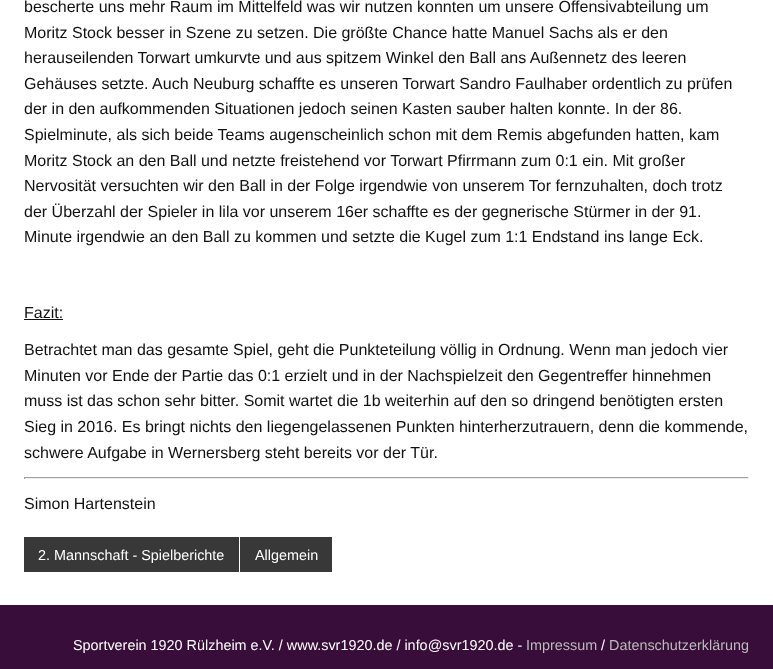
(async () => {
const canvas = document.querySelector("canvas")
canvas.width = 773
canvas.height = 669
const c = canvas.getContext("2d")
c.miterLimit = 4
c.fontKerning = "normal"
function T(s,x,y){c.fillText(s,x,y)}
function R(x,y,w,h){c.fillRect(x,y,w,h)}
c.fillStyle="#fff"
R(0,0,773,669)
c.font="16px Liberation Sans"
c.fillStyle="#111"
T("bescherte uns mehr Raum im Mittelfeld was wir nutzen konnten um unsere Offensivabteilung um",24,12)
T("Moritz Stock besser in Szene zu setzen. Die größte Chance hatte Manuel Sachs als er den",24,38)
T("herauseilenden Torwart umkurvte und aus spitzem Winkel den Ball ans Außennetz des leeren",24,63)
T("Gehäuses setzte. Auch Neuburg schaffte es unseren Torwart Sandro Faulhaber ordentlich zu prüfen",24,89)
T("der in den aufkommenden Situationen jedoch seinen Kasten sauber halten konnte. In der 86.",24,114)
T("Spielminute, als sich beide Teams augenscheinlich schon mit dem Remis abgefunden hatten, kam",24,140)
T("Moritz Stock an den Ball und netzte freistehend vor Torwart Pfirrmann zum 0:1 ein. Mit großer",24,166)
T("Nervosität versuchten wir den Ball in der Folge irgendwie von unserem Tor fernzuhalten, doch trotz",24,191)
T("der Überzahl der Spieler in lila vor unserem 16er schaffte es der gegnerische Stürmer in der 91.",24,217)
T("Minute irgendwie an den Ball zu kommen und setzte die Kugel zum 1:1 Endstand ins lange Eck.",24,242)
T("Fazit:",24,318)
R(24,319,39,1)
T("Betrachtet man das gesamte Spiel, geht die Punkteteilung völlig in Ordnung. Wenn man jedoch vier",24,355)
T("Minuten vor Ende der Partie das 0:1 erzielt und in der Nachspielzeit den Gegentreffer hinnehmen",24,381)
T("muss ist das schon sehr bitter. Somit wartet die 1b weiterhin auf den so dringend benötigten ersten",24,406)
T("Sieg in 2016. Es bringt nichts den liegengelassenen Punkten hinterherzutrauern, denn die kommende,",24,432)
T("schwere Aufgabe in Wernersberg steht bereits vor der Tür.",24,458)
c.fillStyle="#9f9f9f"
R(24,477,725,1)
c.fillStyle="#eee"
R(748,477,1,2)
R(24,478,725,1)
c.fillStyle="#9f9f9f"
R(24,477,1,2)
c.fillStyle="#111"
T("Simon Hartenstein",24,509)
c.fillStyle="#383838"
R(24,537,215,35)
c.font="14.4px Liberation Sans"
c.fillStyle="#fff"
T("2. Mannschaft - Spielberichte",38,560)
c.fillStyle="#383838"
R(240,537,92,35)
c.fillStyle="#fff"
T("Allgemein",255,560)
c.fillStyle="#380d3a"
R(0,605,773,64)
c.fillStyle="#fff"
T("Sportverein 1920 Rülzheim e.V. / www.svr1920.de / info@svr1920.de -",73,650)
c.fillStyle="#bbb"
T("Impressum",526,650)
c.fillStyle="#fff"
T("/",601,650)
c.fillStyle="#bbb"
T("Datenschutzerklärung",609,650)
})()
